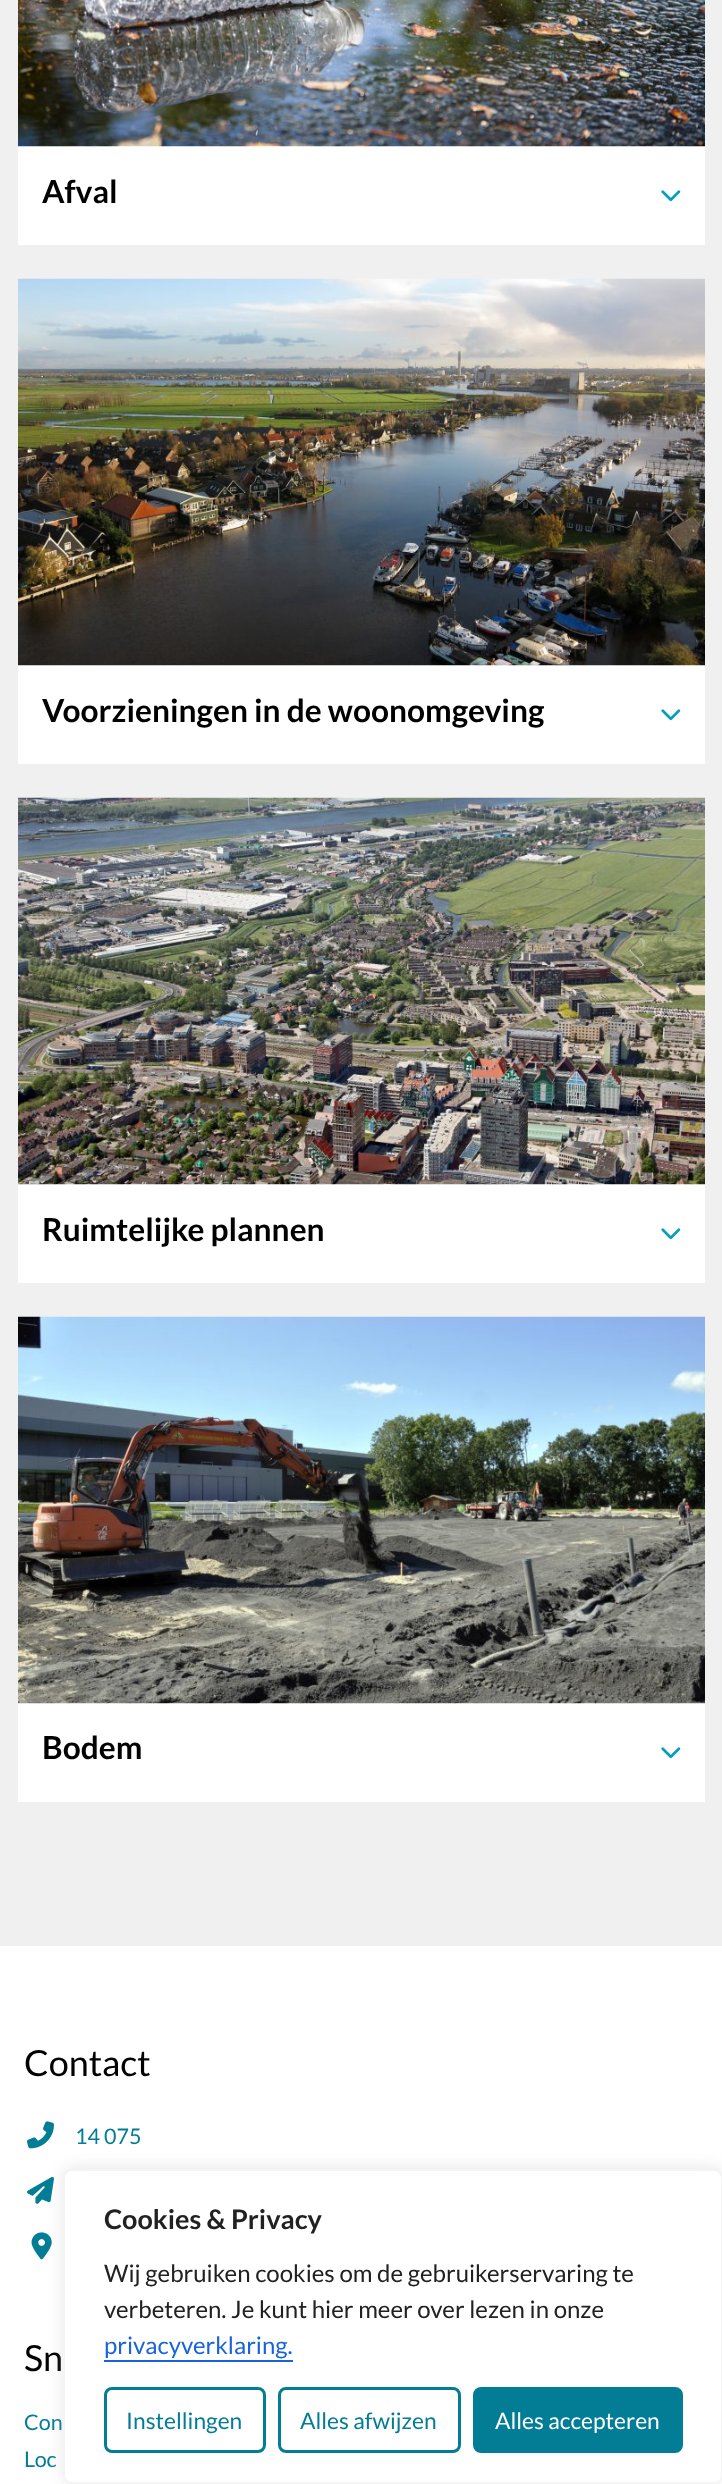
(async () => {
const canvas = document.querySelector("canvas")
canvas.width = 722
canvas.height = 2484
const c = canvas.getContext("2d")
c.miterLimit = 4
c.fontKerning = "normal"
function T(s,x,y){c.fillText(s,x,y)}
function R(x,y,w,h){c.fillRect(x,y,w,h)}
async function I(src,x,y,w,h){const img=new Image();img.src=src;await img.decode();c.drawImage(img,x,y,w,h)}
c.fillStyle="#f0f0f0"
R(0,0,722,2484)
c.fillStyle="#fff"
R(18,146,687,99)
await I("1.png",18,0,687,147)
c.font="bold 31.7px Lato"
c.fillStyle="#000"
T("Afval",42,203)
await I("2.png",661,190,20,12)
c.fillStyle="#fff"
R(18,665,687,99)
await I("3.png",18,278,687,388)
c.fillStyle="#000"
T("Voorzieningen in de woonomgeving",42,722)
await I("2.png",661,709,20,12)
c.fillStyle="#fff"
R(18,1184,687,99)
await I("4.png",18,797,687,388)
c.fillStyle="#000"
T("Ruimtelijke plannen",42,1241)
await I("2.png",661,1228,20,12)
c.fillStyle="#fff"
R(18,1703,687,99)
await I("5.png",18,1316,687,388)
c.fillStyle="#000"
T("Bodem",42,1759)
await I("2.png",661,1747,20,12)
c.fillStyle="#fff"
R(0,1946,722,538)
c.font="36px Lato"
c.fillStyle="#000"
T("Contact",24,2076)
await I("6.png",27,2121,27,28)
c.font="21.5px Lato"
c.fillStyle="#037d96"
T("14 075",75,2144)
await I("7.png",27,2176,27,28)
await I("8.png",31,2232,21,28)
c.font="36px Lato"
c.fillStyle="#000"
T("Sn",24,2371)
c.font="21.5px Lato"
c.fillStyle="#037d96"
T("Con",24,2430)
T("Loc",24,2467)
c.fillStyle="#acabab4d"
c.filter="blur(7.5px)"
c.beginPath()
c.roundRect(63,2168,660,315,9)
c.fill()
c.filter="none"
c.fillStyle="#fff"
c.beginPath()
c.roundRect(64,2170,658,313,8)
c.fill()
c.strokeStyle="#f4f4f4"
c.lineWidth=2
c.stroke()
c.font="bold 27px Lato"
c.fillStyle="#212121"
T("Cookies & Privacy",104,2229)
c.font="24px Lato"
T("Wij gebruiken cookies om de gebruikerservaring te",104,2282)
T("verbeteren. Je kunt hier meer over lezen in onze",104,2318)
c.fillStyle="#1863dc"
T("privacyverklaring.",104,2354)
R(104,2360,189,2)
c.beginPath()
c.roundRect(105.5,2388.5,159,63,6.5)
c.strokeStyle="#037d96"
c.lineWidth=3
c.stroke()
c.font="22.75px Lato"
c.fillStyle="#037d96"
T("Instellingen",126,2429)
c.beginPath()
c.roundRect(279.5,2388.5,180,63,6.5)
c.stroke()
T("Alles afwijzen",300,2429)
c.beginPath()
c.roundRect(474.5,2388.5,207,63,6.5)
c.fill()
c.stroke()
c.fillStyle="#fff"
T("Alles accepteren",495,2429)
})()
